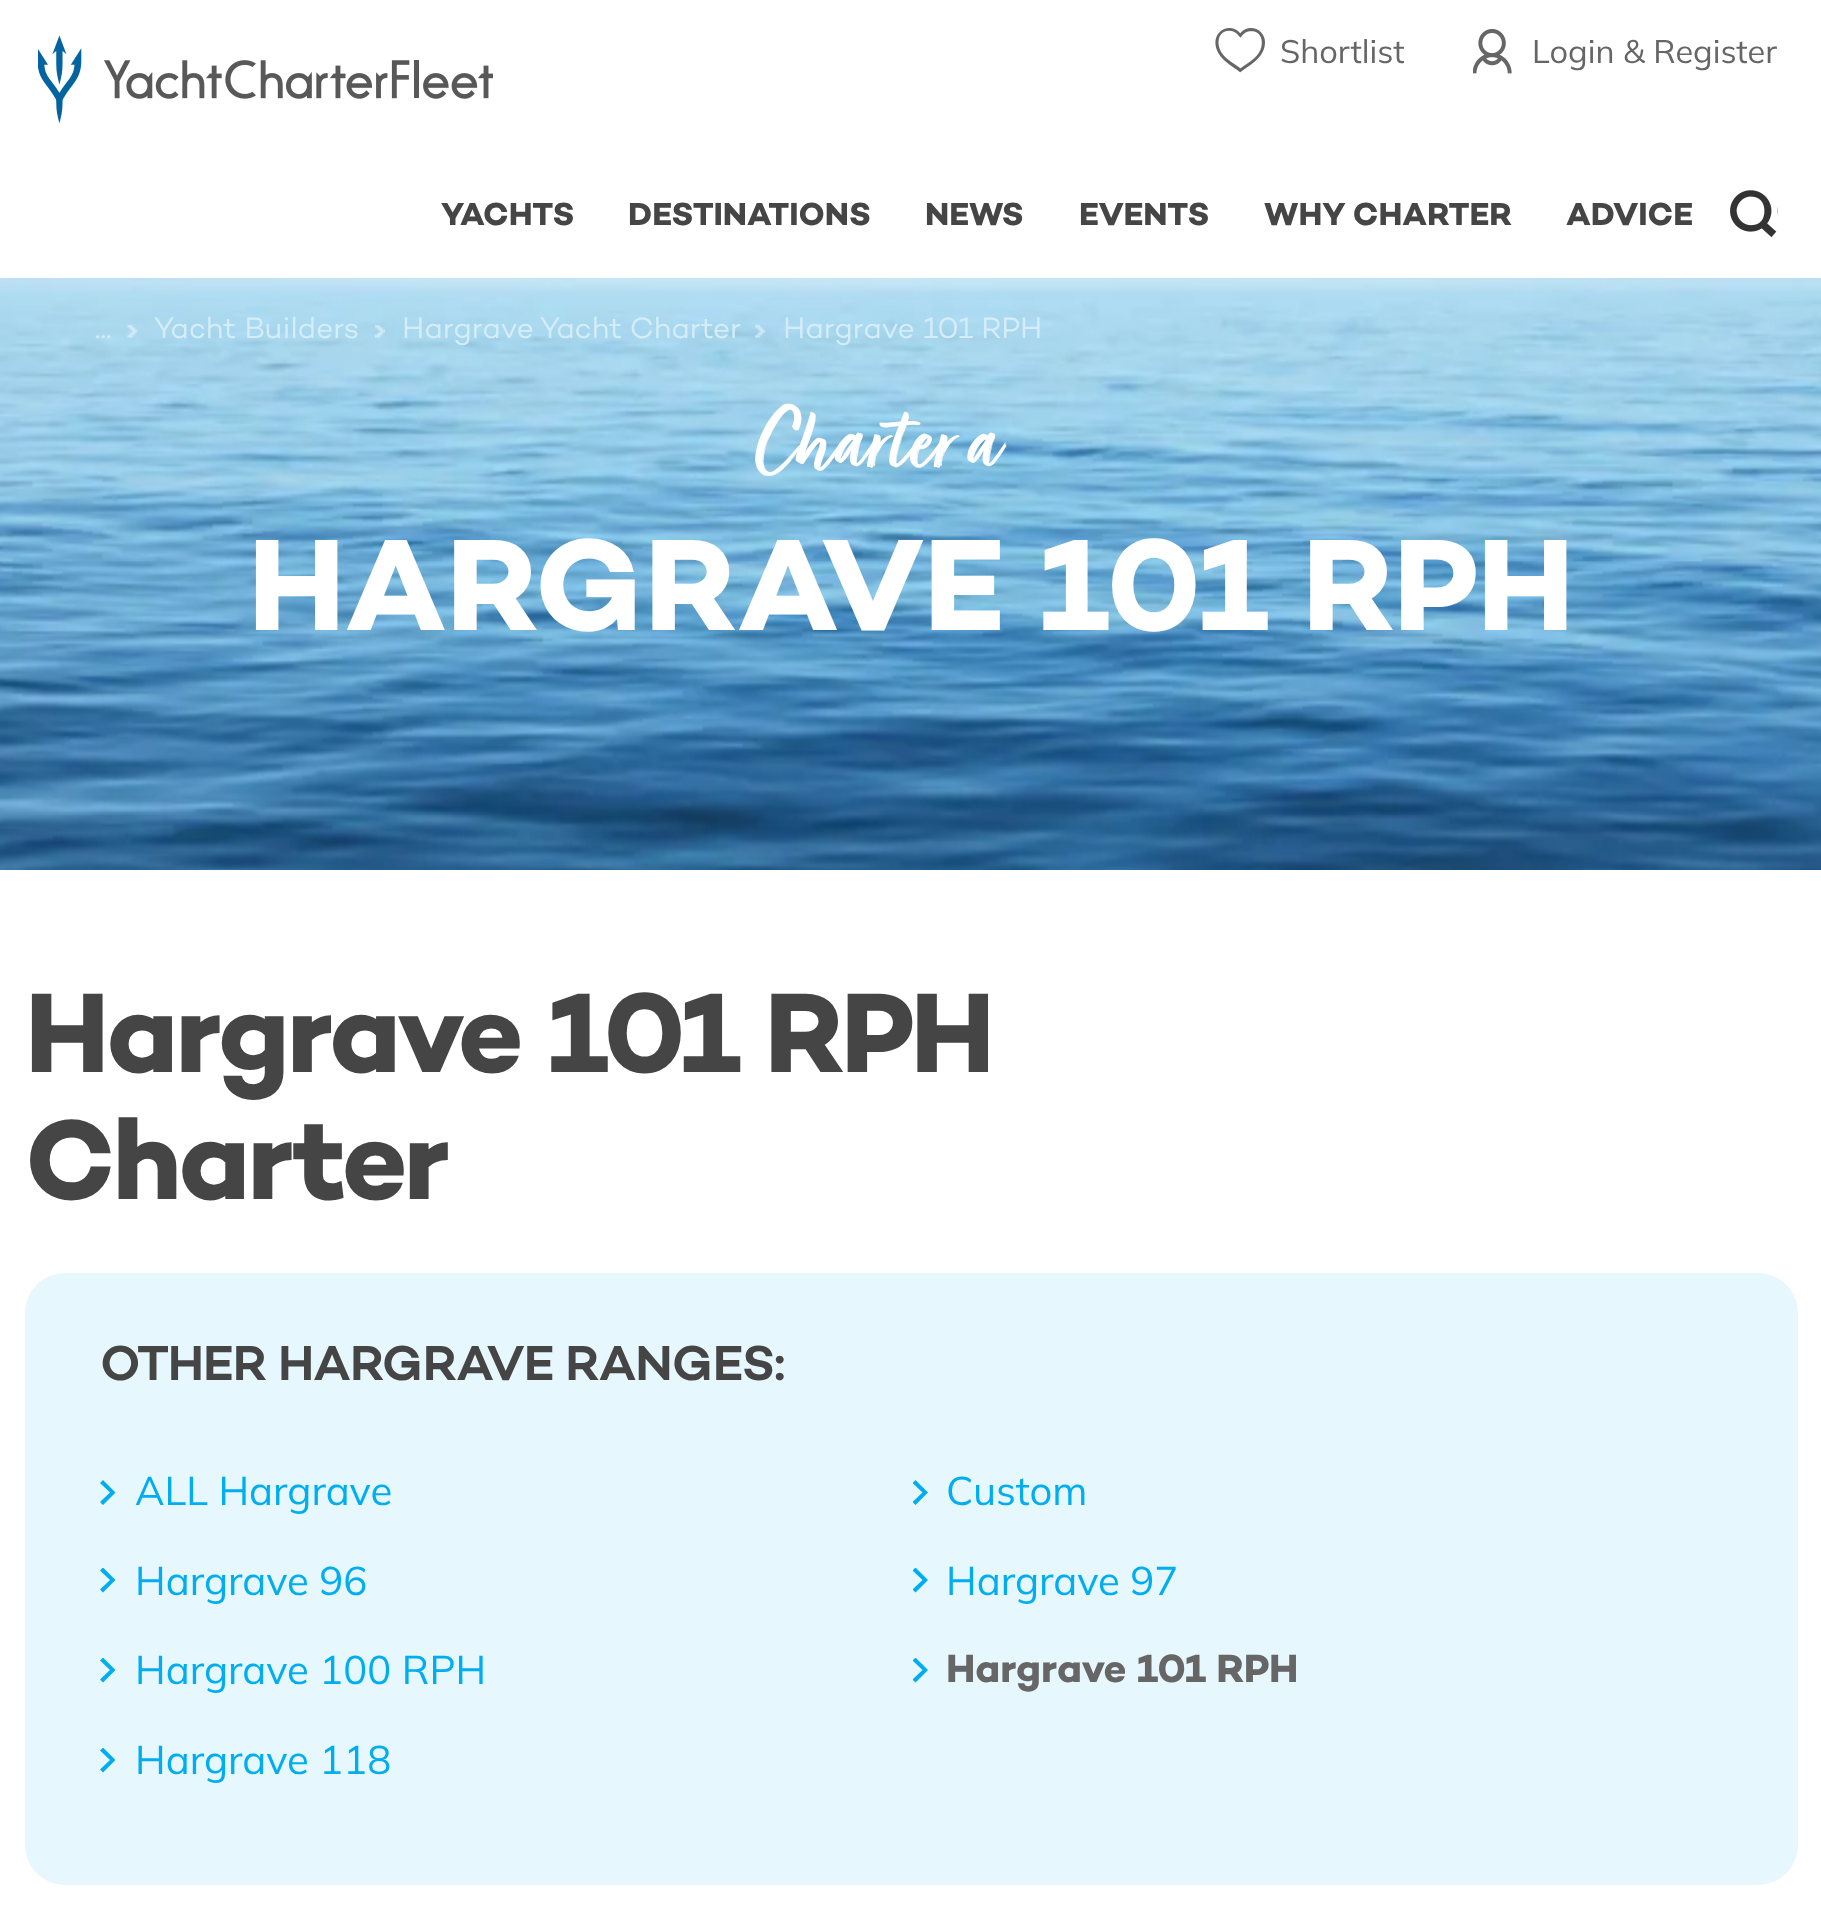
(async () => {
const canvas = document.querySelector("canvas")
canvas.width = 1821
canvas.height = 1909
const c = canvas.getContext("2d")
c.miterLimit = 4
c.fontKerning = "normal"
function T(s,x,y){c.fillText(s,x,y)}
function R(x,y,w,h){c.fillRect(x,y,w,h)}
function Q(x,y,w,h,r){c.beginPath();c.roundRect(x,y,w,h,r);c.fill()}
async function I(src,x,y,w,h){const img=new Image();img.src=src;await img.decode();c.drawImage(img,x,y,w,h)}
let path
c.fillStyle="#fff"
R(0,0,1821,1909)
await I("1.png",38,35,455,88)
await I("2.png",1215,28,50,45)
c.font="32.5px Mulish"
c.fillStyle="#666"
T("Shortlist",1280,63)
await I("3.png",1473,28,39,46)
T("Login & Register",1532,63)
c.font="bold 32.5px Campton"
c.fillStyle="#454545"
T("YACHTS",441,225)
T("DESTINATIONS",628,225)
T("NEWS",925,225)
T("EVENTS",1079,225)
T("WHY CHARTER",1264,225)
T("ADVICE",1566,225)
await I("4.png",1730,190,48,48)
await I("8.png",0,278,1821,592)
await I("5.png",127,324,11,14)
c.font="30px Campton"
c.fillStyle="#d5edf8"
T("...",95,338)
await I("6.png",375,324,10,14)
T("Yacht Builders",154,338)
await I("7.png",755,324,10,14)
T("Hargrave Yacht Charter",402,338)
T("Hargrave 101 RPH",783,338)
c.font="bold 95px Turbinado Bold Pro"
c.fillStyle="#fff"
T("Charter a",754,475)
c.font="bold 132.5px Campton"
T("HARGRAVE 101 RPH",248,630)
c.letterSpacing="-2.9px"
c.font="bold 115px Campton"
c.fillStyle="#454545"
T("Hargrave 101 RPH",25,1072)
T("Charter",25,1199)
c.fillStyle="#e7f7fe"
Q(25,1273,1773,612,40)
c.letterSpacing="-1px"
c.font="600 50px Campton"
c.fillStyle="#454545"
T("OTHER HARGRAVE RANGES:",100,1380)
c.fillStyle="#00adef"
path = new Path2D("M103 1480l-3 3l10 9.5l-10 9.5l3 3l12.5-12.5z")
c.fill(path)
c.letterSpacing="0px"
c.font="40px Mulish"
c.fillStyle="#00aeef"
T("ALL Hargrave",135,1505)
c.save()
c.beginPath()
c.rect(913,1480,15,25)
c.clip()
c.fillStyle="#00adef"
path = new Path2D("M915.5 1480l-3 3l10 9.5l-10 9.5l3 3l12.5-12.5z")
c.fill(path)
c.restore()
T("Custom",946,1505)
c.save()
c.beginPath()
c.rect(100,1568,15,25)
c.clip()
c.fillStyle="#00adef"
path = new Path2D("M103 1567.5l-3 3l10 9.5l-10 9.5l3 3l12.5-12.5z")
c.fill(path)
c.restore()
T("Hargrave 96",135,1595)
c.save()
c.beginPath()
c.rect(913,1568,15,25)
c.clip()
c.fillStyle="#00adef"
path = new Path2D("M915.5 1567.5l-3 3l10 9.5l-10 9.5l3 3l12.5-12.5z")
c.fill(path)
c.restore()
T("Hargrave 97",946,1595)
c.save()
c.beginPath()
c.rect(100,1658,15,25)
c.clip()
c.fillStyle="#00adef"
path = new Path2D("M103 1657.5l-3 3l10 9.5l-10 9.5l3 3l12.5-12.5z")
c.fill(path)
c.restore()
T("Hargrave 100 RPH",135,1684)
c.save()
c.beginPath()
c.rect(913,1658,15,25)
c.clip()
c.fillStyle="#00adef"
path = new Path2D("M915.5 1657.5l-3 3l10 9.5l-10 9.5l3 3l12.5-12.5z")
c.fill(path)
c.restore()
c.font="bold 40px Campton"
c.fillStyle="#666"
T("Hargrave 101 RPH",946,1682)
c.save()
c.beginPath()
c.rect(100,1748,15,25)
c.clip()
c.fillStyle="#00adef"
path = new Path2D("M103 1747.5l-3 3l10 9.5l-10 9.5l3 3l12.5-12.5z")
c.fill(path)
c.restore()
c.font="40px Mulish"
c.fillStyle="#00aeef"
T("Hargrave 118",135,1774)
})()
